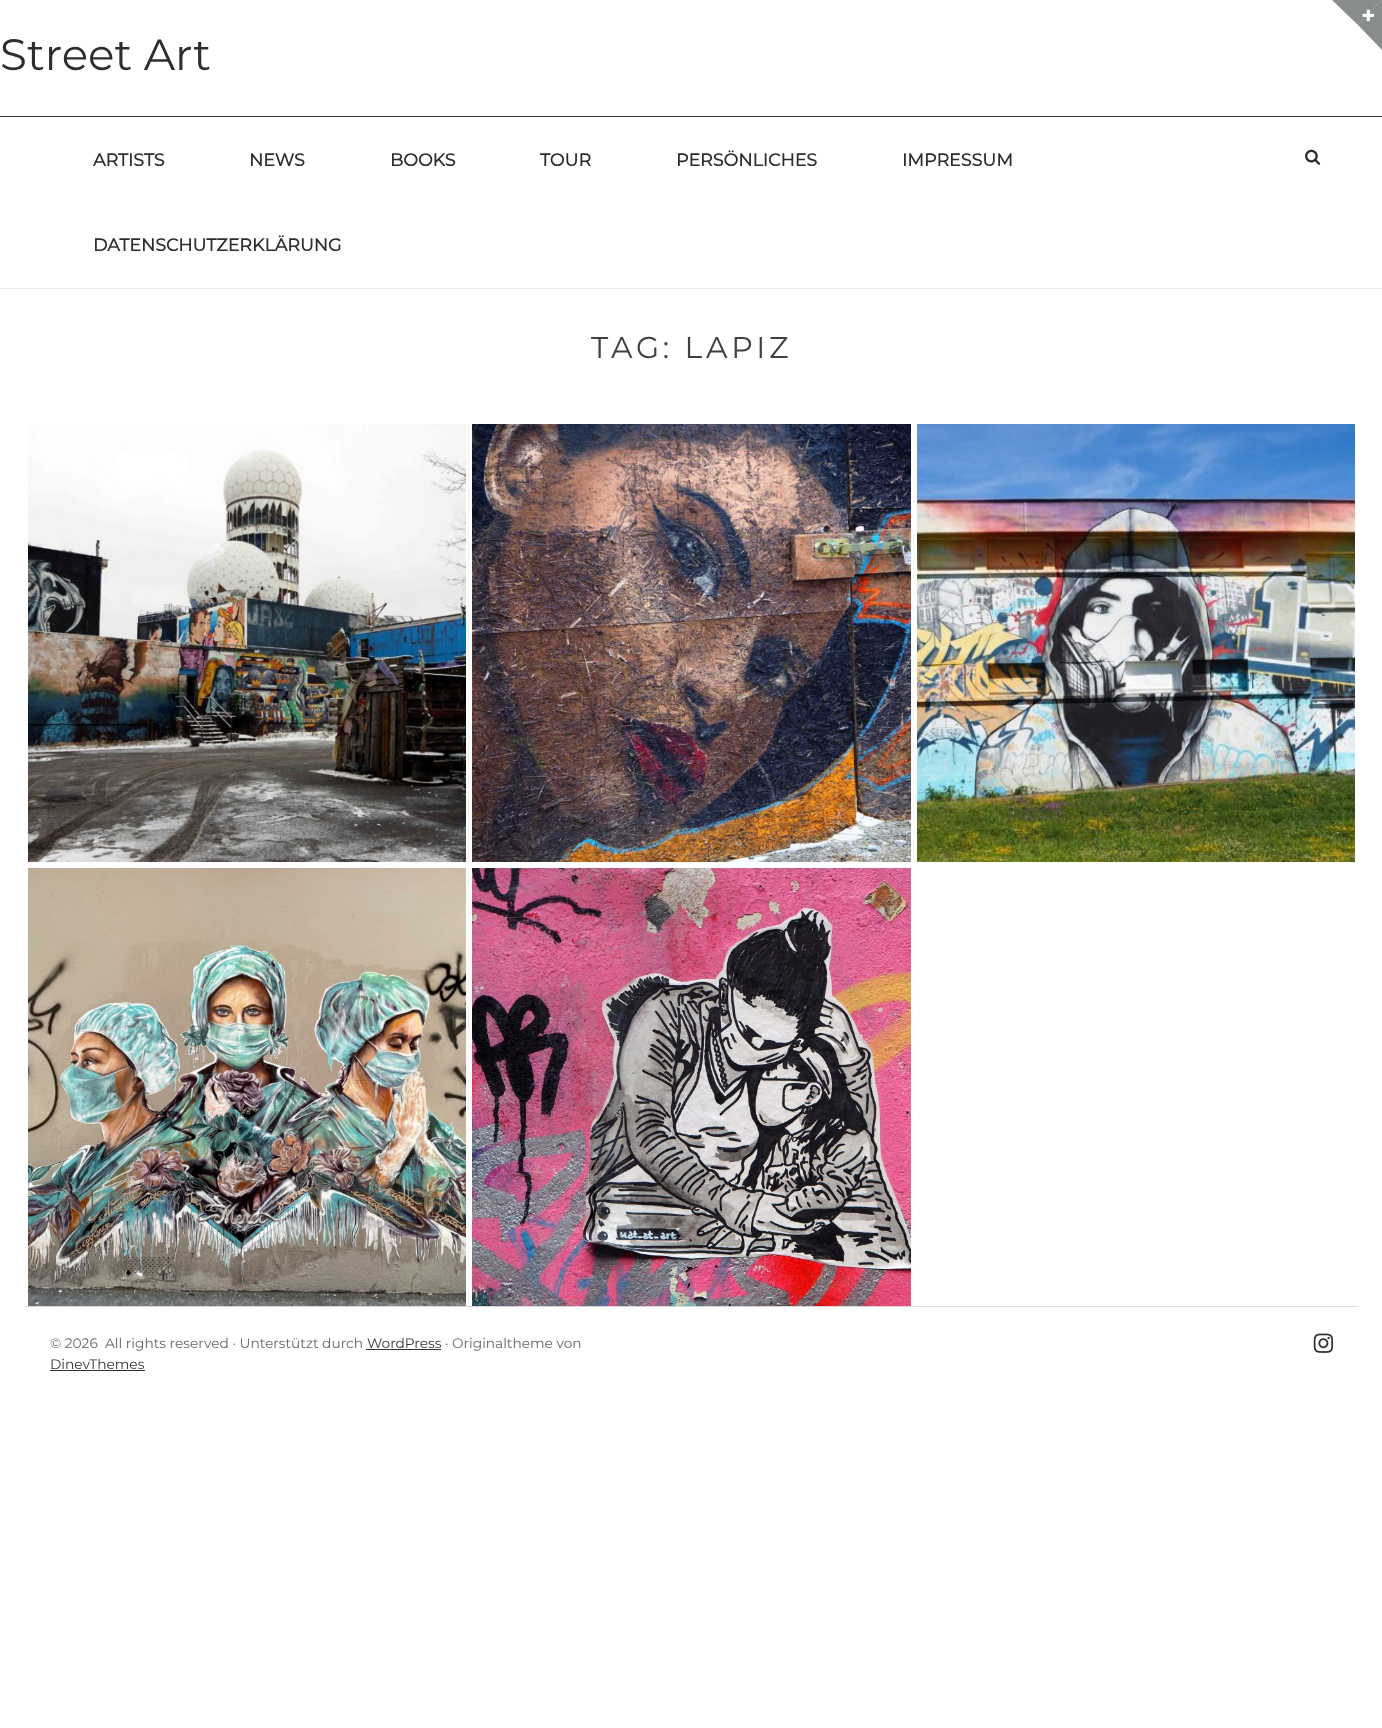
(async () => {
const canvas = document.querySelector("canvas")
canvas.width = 1382
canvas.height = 1728
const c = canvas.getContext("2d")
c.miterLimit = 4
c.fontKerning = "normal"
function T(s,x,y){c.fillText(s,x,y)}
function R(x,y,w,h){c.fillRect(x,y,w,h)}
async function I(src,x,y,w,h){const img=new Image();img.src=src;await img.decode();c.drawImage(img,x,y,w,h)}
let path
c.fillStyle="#fff"
R(0,0,1382,1728)
c.fillStyle="#898d8b"
path = new Path2D("M1332 0h50l-24 25z")
c.fill(path)
c.fillStyle="#6c706ecc"
path = new Path2D("M1382 0v50l-24-25z")
c.fill(path)
await I("1.png",1362,9,13,13)
c.font="100 43.75px Montserrat"
c.fillStyle="#2d2d2d"
T("Street Art",0,70)
c.fillStyle="#333"
R(0,116,1382,1)
c.fillStyle="#eaeaea"
R(0,288,1382,1)
c.font="bold 17.5px Montserrat"
c.fillStyle="#2d2d2d"
T("ARTISTS",93,166)
T("NEWS",249,166)
T("BOOKS",390,166)
T("TOUR",540,166)
T("PERSÖNLICHES",676,166)
T("IMPRESSUM",902,166)
T("DATENSCHUTZERKLÄRUNG",93,251)
await I("2.png",1305,149,16,16)
c.letterSpacing="3.75px"
c.font="100 30px Montserrat"
c.fillStyle="#404040"
T("TAG: LAPIZ",591,358)
await I("3.png",28,424,438,438)
await I("4.png",468,424,443,438)
c.save()
c.beginPath()
c.rect(469,419,445,444)
c.clip()
c.strokeStyle="#fff"
c.lineWidth=3
c.strokeRect(470.5,422.5,442,441)
c.restore()
await I("5.png",913,424,442,438)
c.save()
c.beginPath()
c.rect(914,419,444,444)
c.clip()
c.strokeStyle="#fff"
c.lineWidth=3
c.strokeRect(915.5,422.5,441,441)
c.restore()
c.fillStyle="#ddd"
R(25,1306,1333,1)
await I("6.png",25,868,444,439)
c.save()
c.beginPath()
c.rect(25,863,444,443)
c.clip()
c.strokeStyle="#fff"
c.lineWidth=3
c.strokeRect(26.5,866.5,441,441)
c.restore()
await I("7.png",468,867,446,440)
c.save()
c.beginPath()
c.rect(469,863,445,443)
c.clip()
c.strokeStyle="#fff"
c.lineWidth=3
c.strokeRect(470.5,866.5,442,441)
c.restore()
c.letterSpacing="0px"
c.font="100 13.75px Montserrat"
c.fillStyle="#666"
T("© 2026",50,1348)
T("All rights reserved · Unterstützt durch",105,1348)
c.fillStyle="#333"
T("WordPress",367,1348)
R(366,1349,75,1)
c.fillStyle="#666"
T("· Originaltheme von",445,1348)
c.fillStyle="#333"
T("DinevThemes",50,1369)
R(50,1370,95,1)
await I("8.png",1313,1333,21,20)
})()
